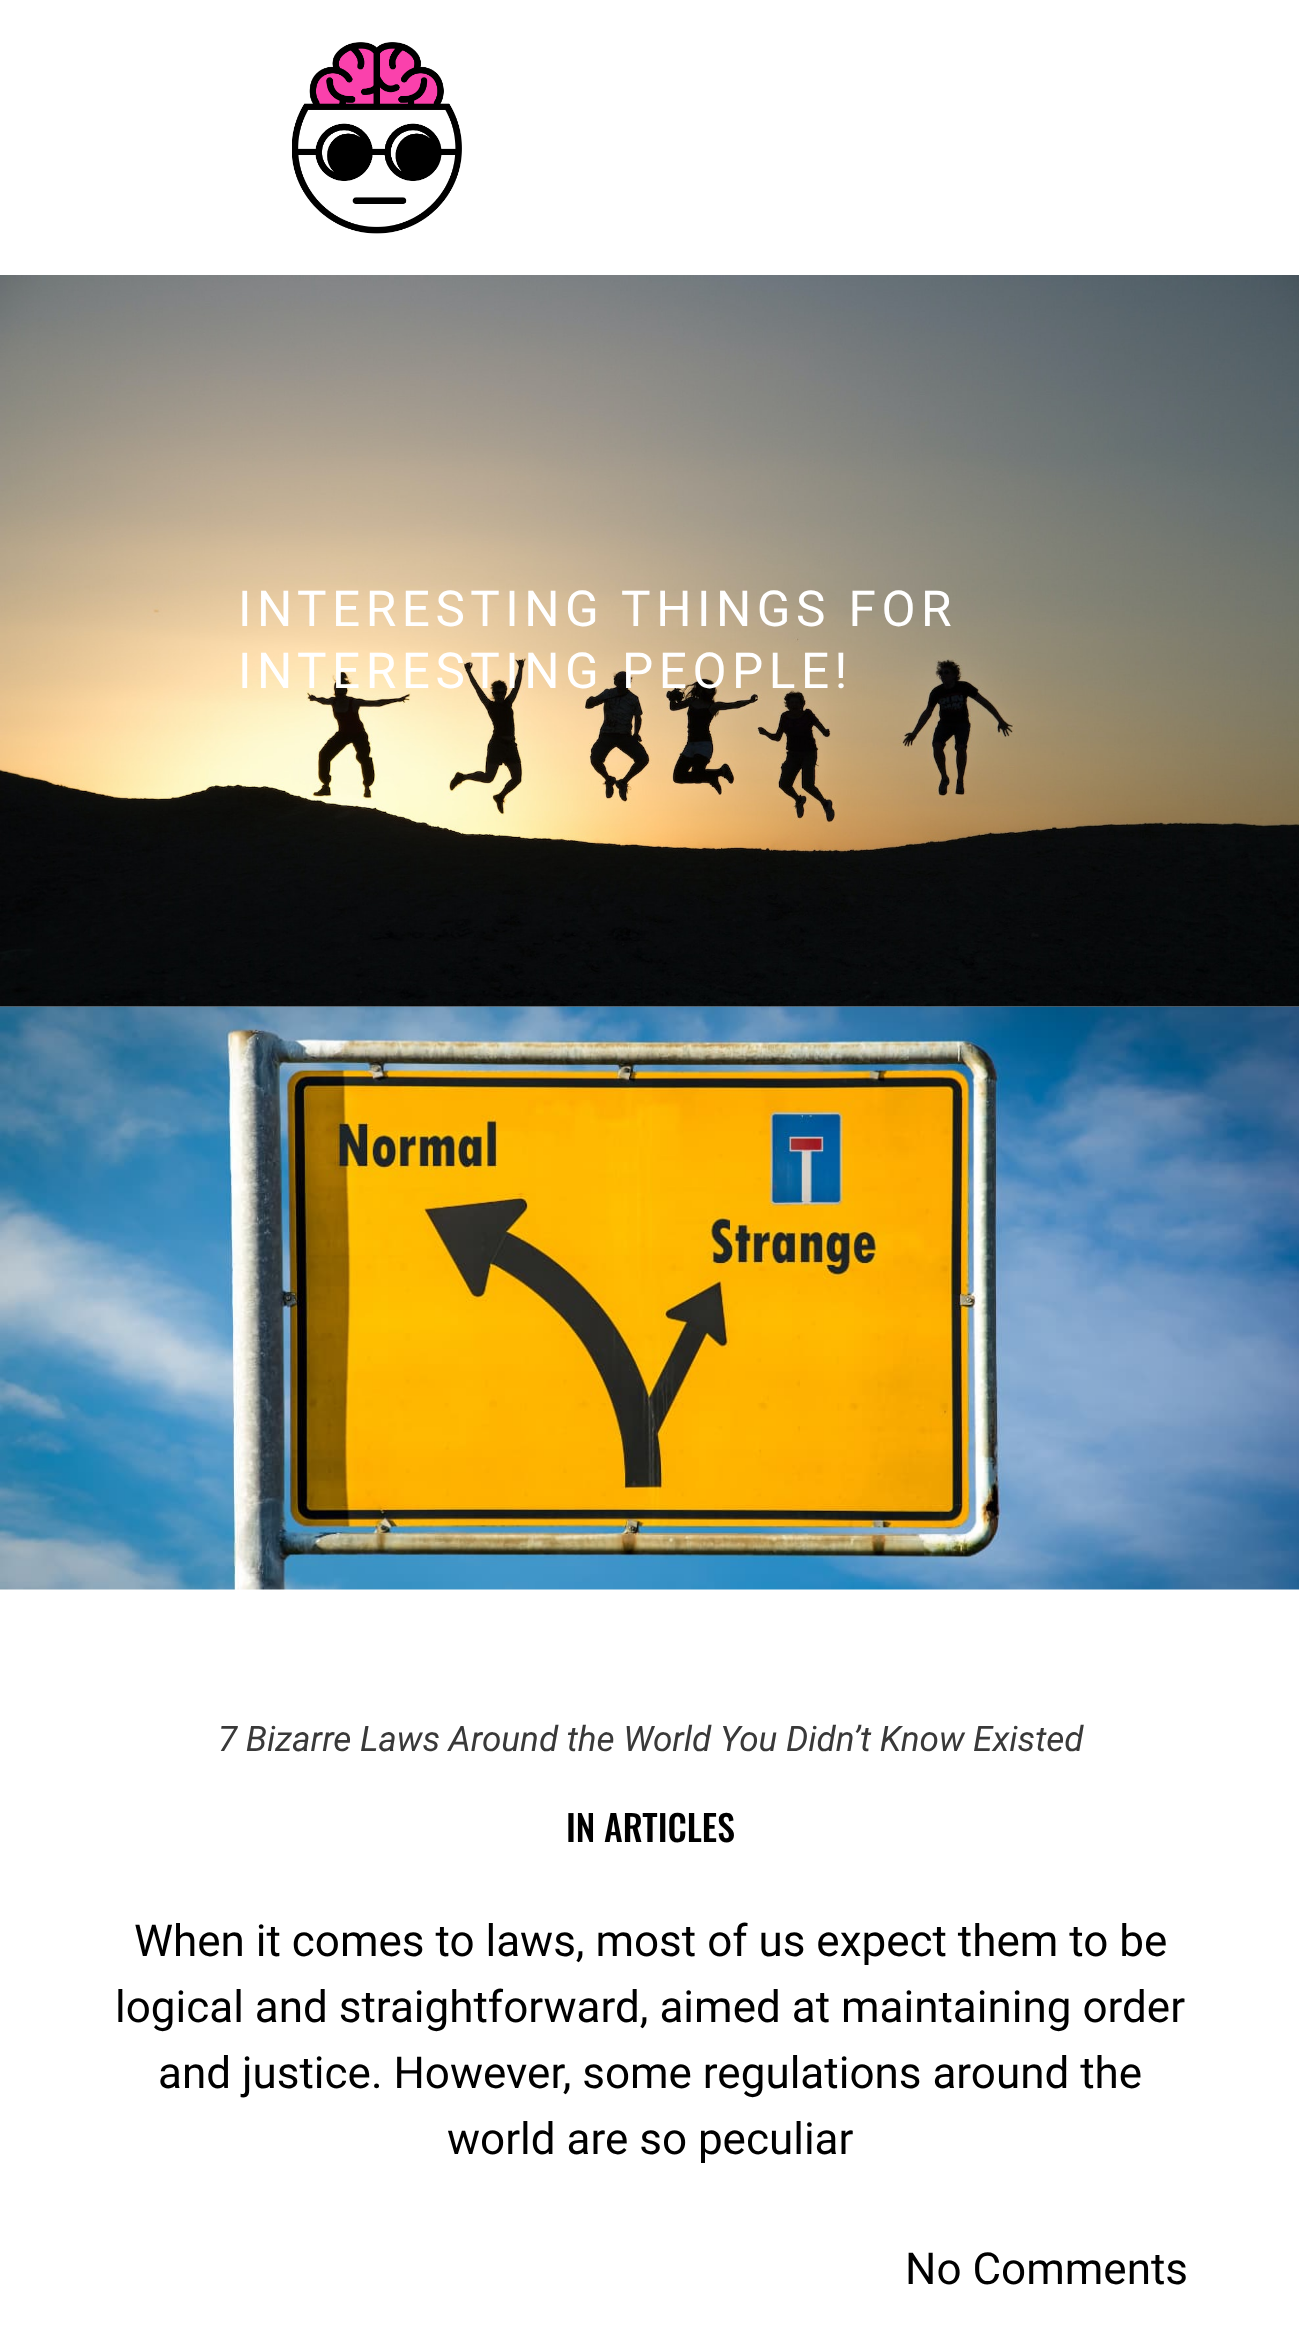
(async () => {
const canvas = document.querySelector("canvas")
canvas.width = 1299
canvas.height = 2345
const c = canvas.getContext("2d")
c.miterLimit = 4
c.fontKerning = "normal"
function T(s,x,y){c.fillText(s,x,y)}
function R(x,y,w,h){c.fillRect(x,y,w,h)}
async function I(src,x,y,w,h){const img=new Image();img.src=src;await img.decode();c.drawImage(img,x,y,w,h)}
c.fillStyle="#fff"
R(0,0,1299,2345)
await I("1.png",292,42,170,192)
await I("3.png",0,1006,1299,584)
await I("2.png",0,275,1299,732)
c.letterSpacing="5.5px"
c.font="49.5px Roboto"
T("INTERESTING THINGS FOR",238,626)
T("INTERESTING PEOPLE!",238,688)
c.letterSpacing="0px"
c.font="italic 35.1px Roboto"
c.fillStyle="#393939"
T("7 Bizarre Laws Around the World You Didn’t Know Existed",218,1751)
c.font="500 35.75px Oswald"
c.fillStyle="#000"
T("IN ARTICLES",566,1842)
c.font="44px Roboto"
T("When it comes to laws, most of us expect them to be",134,1956)
T("logical and straightforward, aimed at maintaining order",115,2022)
T("and justice. However, some regulations around the",158,2088)
T("world are so peculiar",447,2154)
T("No Comments",905,2284)
})()
